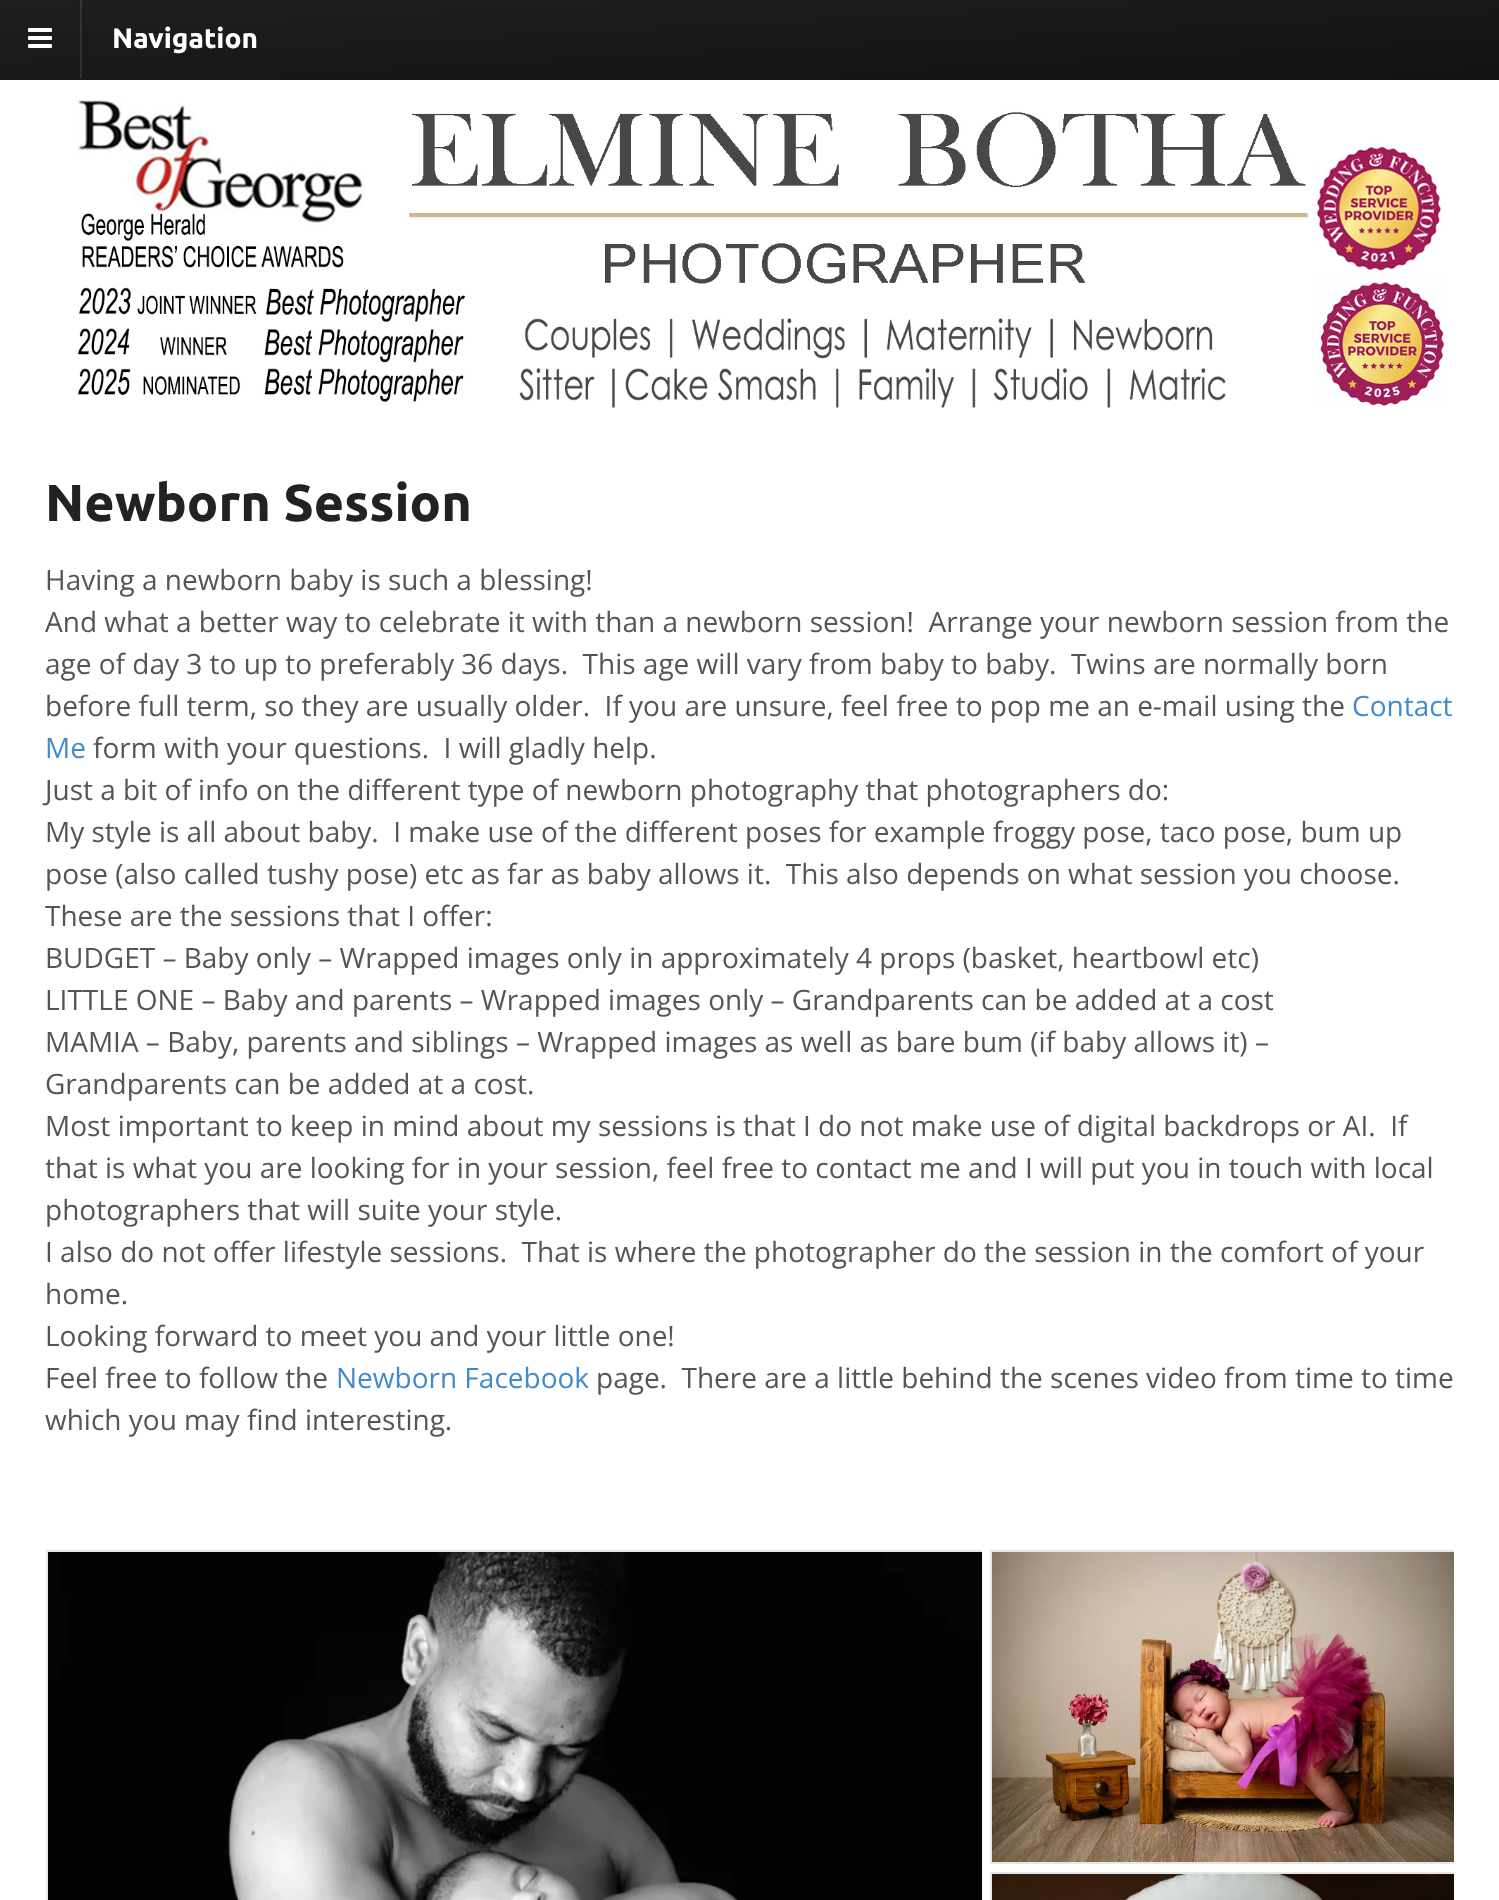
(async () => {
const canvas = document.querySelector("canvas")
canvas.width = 1499
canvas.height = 1900
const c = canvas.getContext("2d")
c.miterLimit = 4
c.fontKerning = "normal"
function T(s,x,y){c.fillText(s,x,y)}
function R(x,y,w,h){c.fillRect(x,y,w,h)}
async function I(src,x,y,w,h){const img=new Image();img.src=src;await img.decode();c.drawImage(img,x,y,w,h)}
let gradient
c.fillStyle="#fff"
R(0,0,1499,1900)
gradient = c.createLinearGradient(746,-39,754,117)
gradient.addColorStop(0,"#1f1f1f")
gradient.addColorStop(1,"#121212")
c.fillStyle = gradient
R(0,0,1499,78)
gradient = c.createLinearGradient(746,-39,754,117)
gradient.addColorStop(0,"#1c1c1c")
gradient.addColorStop(1,"#101010")
c.fillStyle = gradient
R(82,8,2,60)
gradient = c.createLinearGradient(746,-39,754,117)
gradient.addColorStop(0,"#353535")
gradient.addColorStop(1,"#2a2a2a")
c.fillStyle = gradient
R(80,0,2,78)
gradient = c.createLinearGradient(746,39,754,195)
gradient.addColorStop(0,"#191919")
gradient.addColorStop(1,"#0e0e0e")
c.fillStyle = gradient
R(0,78,1499,2)
await I("1.png",28,28,24,20)
c.font="bold 28px Ubuntu"
c.fillStyle="#fff"
T("Navigation",112,48)
await I("2.png",77,100,1370,308)
c.font="bold 52px Ubuntu"
c.fillStyle="#222"
T("Newborn Session",45,521)
c.font="28px Open Sans"
c.fillStyle="#555"
T("Having a newborn baby is such a blessing!",45,590)
T("And what a better way to celebrate it with than a newborn session!  Arrange your newborn session from the",45,632)
T("age of day 3 to up to preferably 36 days.  This age will vary from baby to baby.  Twins are normally born",45,674)
T("before full term, so they are usually older.  If you are unsure, feel free to pop me an e-mail using the",45,716)
c.fillStyle="#428bca"
T("Contact",1352,716)
T("Me",45,758)
c.fillStyle="#555"
T("form with your questions.  I will gladly help.",93,758)
T("Just a bit of info on the different type of newborn photography that photographers do:",45,800)
T("My style is all about baby.  I make use of the different poses for example froggy pose, taco pose, bum up",45,842)
T("pose (also called tushy pose) etc as far as baby allows it.  This also depends on what session you choose.",45,884)
T("These are the sessions that I offer:",45,926)
T("BUDGET – Baby only – Wrapped images only in approximately 4 props (basket, heartbowl etc)",45,968)
T("LITTLE ONE – Baby and parents – Wrapped images only – Grandparents can be added at a cost",45,1010)
T("MAMIA – Baby, parents and siblings – Wrapped images as well as bare bum (if baby allows it) –",45,1052)
T("Grandparents can be added at a cost.",45,1094)
T("Most important to keep in mind about my sessions is that I do not make use of digital backdrops or AI.  If",45,1136)
T("that is what you are looking for in your session, feel free to contact me and I will put you in touch with local",45,1178)
T("photographers that will suite your style.",45,1220)
T("I also do not offer lifestyle sessions.  That is where the photographer do the session in the comfort of your",45,1262)
T("home.",45,1304)
T("Looking forward to meet you and your little one!",45,1346)
T("Feel free to follow the",45,1388)
c.fillStyle="#428bca"
T("Newborn Facebook",336,1388)
c.fillStyle="#555"
T("page.  There are a little behind the scenes video from time to time",596,1388)
T("which you may find interesting.",45,1430)
c.save()
c.beginPath()
c.rect(46,1550,936,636)
c.clip()
c.strokeStyle="#e6e6e6"
c.lineWidth=2
c.strokeRect(47,1551,938,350)
c.restore()
await I("3.png",48,1552,934,348)
c.save()
c.beginPath()
c.rect(990,1550,464,314)
c.clip()
c.strokeStyle="#e6e6e6"
c.lineWidth=2
c.strokeRect(991,1551,466,312)
c.restore()
await I("4.png",992,1552,462,310)
c.save()
c.beginPath()
c.rect(990,1872,464,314)
c.clip()
c.strokeStyle="#e6e6e6"
c.lineWidth=2
c.strokeRect(991,1873,466,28)
c.restore()
await I("5.png",992,1874,462,26)
})()
